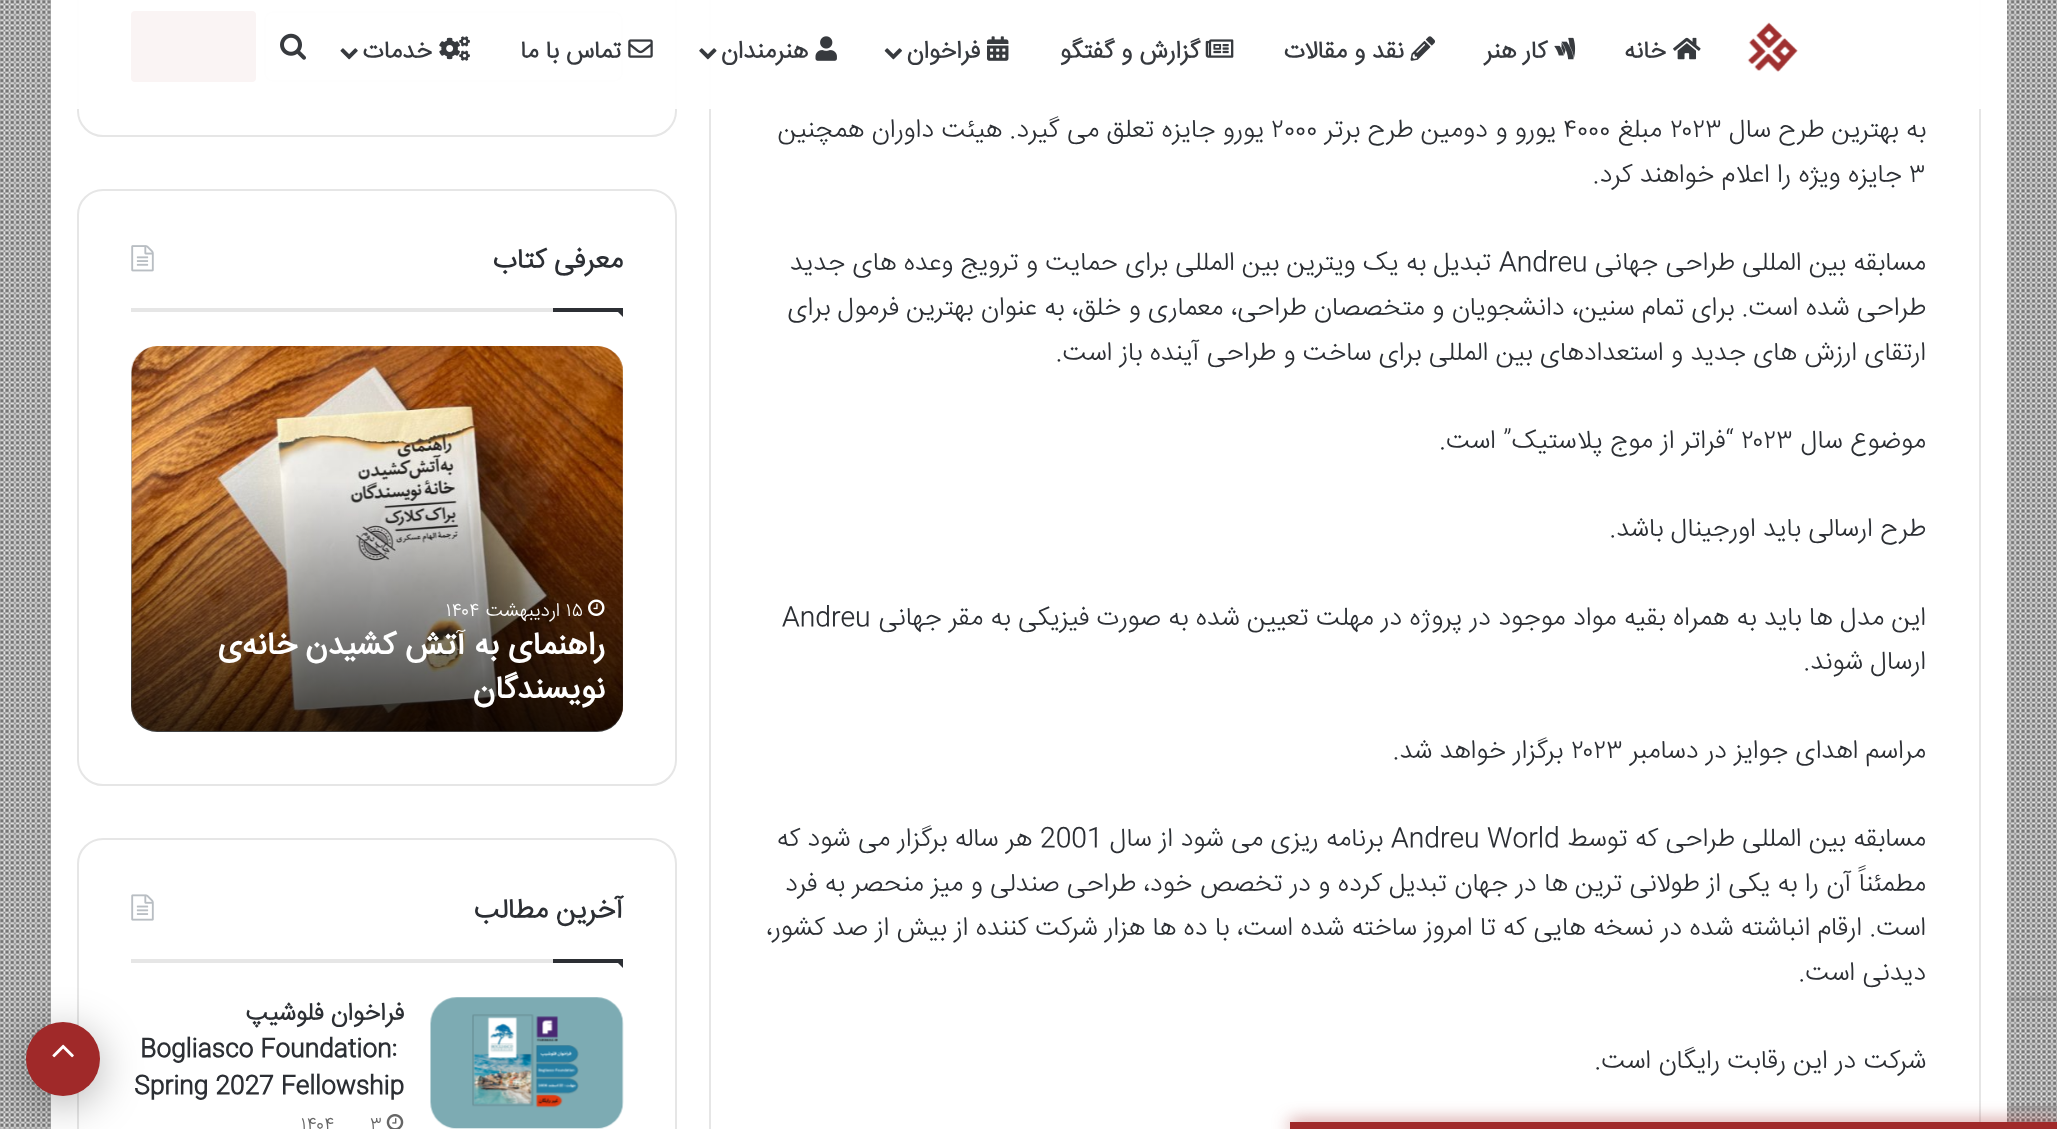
(async () => {
const canvas = document.querySelector("canvas")
canvas.width = 2057
canvas.height = 1129
const c = canvas.getContext("2d")
c.miterLimit = 4
c.fontKerning = "normal"
function T(s,x,y){c.fillText(s,x,y)}
function R(x,y,w,h){c.fillRect(x,y,w,h)}
function Q(x,y,w,h,r){c.beginPath();c.roundRect(x,y,w,h,r);c.fill()}
async function I(src,x,y,w,h){const img=new Image();img.src=src;await img.decode();c.drawImage(img,x,y,w,h)}
let gradient, path
c.fillStyle="#eaeaea"
R(0,0,2057,1129)
await I("1.png",0,0,2057,1129)
c.save()
path = new Path2D("M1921 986h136v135h-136zm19 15h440c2 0 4 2 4 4v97c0 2-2 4-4 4h-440c-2 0-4-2-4-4v-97c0-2 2-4 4-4z")
c.clip(path,"evenodd")
c.fillStyle="#808080"
c.filter="blur(4.5px)"
c.beginPath()
c.roundRect(1936,1001,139,105,4)
c.fill()
c.filter="none"
c.restore()
c.fillStyle="#ababab80"
c.filter="blur(6px)"
c.beginPath()
c.rect(51,-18,1956,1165)
c.fill()
c.filter="none"
c.fillStyle="#fff"
R(51,0,1956,1129)
c.strokeStyle="#e6e6e6"
c.lineWidth=2
c.strokeRect(710,-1,1270,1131)
c.beginPath()
c.roundRect(78,-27,598,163,25)
c.stroke()
c.beginPath()
c.roundRect(265,12,357,69,8)
c.stroke()
c.fillStyle="#a02929"
Q(131,11,125,71,4)
c.fillStyle="#fffffff2"
R(77,0,1904,109)
await I("2.png",1747,22,51,50)
await I("3.png",1673,37,28,23)
c.direction="rtl"
c.font="bold 24.5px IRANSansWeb"
c.fillStyle="#36393e"
T("خانه",1666,58)
await I("4.png",1554,37,22,23)
T("کار هنر",1547,58)
await I("5.png",1410,36,25,25)
T("نقد و مقالات",1404,58)
await I("6.png",1205,39,29,19)
T("گزارش و گفتگو",1200,58)
await I("7.png",987,36,22,25)
T("فراخوان",980,58)
await I("8.png",884,48,18,12)
await I("9.png",815,36,22,25)
T("هنرمندان",808,58)
await I("10.png",699,48,18,12)
await I("11.png",628,39,25,19)
T("تماس با ما",621,58)
await I("12.png",439,36,31,25)
T("خدمات",432,58)
await I("13.png",340,48,18,12)
await I("14.png",280,33,26,27)
c.font="300 26.25px IRANSansWeb"
c.fillStyle="#2c2f34"
T("به بهترین طرح سال",1926,137)
c.direction="ltr"
T("۲۰۲۳",1670,137)
c.direction="rtl"
T("مبلغ",1662,137)
c.direction="ltr"
T("۴۰۰۰",1563,137)
c.direction="rtl"
T("یورو و دومین طرح برتر",1556,137)
c.direction="ltr"
T("۲۰۰۰",1271,137)
c.direction="rtl"
T("یورو جایزه تعلق می گیرد. هیئت داوران همچنین",1264,137)
c.direction="ltr"
T("۳",1909,182)
c.direction="rtl"
T("جایزه ویژه را اعلام خواهند کرد.",1902,182)
T("مسابقه بین المللی طراحی جهانی",1926,270)
c.direction="ltr"
T("Andreu",1499,270)
c.direction="rtl"
T("تبدیل به یک ویترین بین المللی برای حمایت و ترویج وعده های جدید",1491,270)
T("طراحی شده است. برای تمام سنین، دانشجویان و متخصصان طراحی، معماری و خلق، به عنوان بهترین فرمول برای",1926,315)
T("ارتقای ارزش های جدید و استعدادهای بین المللی برای ساخت و طراحی آینده باز است.",1926,360)
T("موضوع سال",1926,448)
c.direction="ltr"
T("۲۰۲۳",1741,448)
c.direction="rtl"
T("“فراتر از موج پلاستیک” است.",1734,448)
T("طرح ارسالی باید اورجینال باشد.",1926,536)
T("این مدل ها باید به همراه بقیه مواد موجود در پروژه در مهلت تعیین شده به صورت فیزیکی به مقر جهانی",1926,625)
c.direction="ltr"
T("Andreu",782,625)
c.direction="rtl"
T("ارسال شوند.",1926,669)
T("مراسم اهدای جوایز در دسامبر",1926,758)
c.direction="ltr"
T("۲۰۲۳",1571,758)
c.direction="rtl"
T("برگزار خواهد شد.",1563,758)
T("مسابقه بین المللی طراحی که توسط",1926,846)
c.direction="ltr"
T("Andreu World",1391,846)
c.direction="rtl"
T("برنامه ریزی می شود از سال",1383,846)
c.direction="ltr"
T("2001",1040,846)
c.direction="rtl"
T("هر ساله برگزار می شود که",1032,846)
T("مطمئناً آن را به یکی از طولانی ترین ها در جهان تبدیل کرده و در تخصص خود، طراحی صندلی و میز منحصر به فرد",1926,891)
T("است. ارقام انباشته شده در نسخه هایی که تا امروز ساخته شده است، با ده ها هزار شرکت کننده از بیش از صد کشور،",1926,935)
T("دیدنی است.",1926,980)
T("شرکت در این رقابت رایگان است.",1926,1068)
c.beginPath()
c.roundRect(78,190,598,595,25)
c.stroke()
c.fillStyle="#e6e6e6"
R(131,308,422,4)
c.font="bold 28px IRANSansWeb"
c.fillStyle="#2c2f34"
T("معرفی کتاب",623,268)
await I("15.png",131,245,23,27)
path = new Path2D("M614 308h9v9z")
c.fill(path)
R(553,308,70,4)
await I("16.png",622,370,1,337)
await I("17.png",131,346,492,385)
await I("19.png",131,368,1,342)
gradient = c.createLinearGradient(377,481,377,732)
gradient.addColorStop(0,"#00000000")
gradient.addColorStop(1,"#000000bf")
c.fillStyle = gradient
c.beginPath()
c.roundRect(131,481,492,251,[0,0,26,26])
c.fill()
await I("18.png",588,599,17,17)
c.direction="ltr"
c.font="300 19px IRANSansWeb"
c.fillStyle="#fff"
T("۱۵",566,616)
c.direction="rtl"
T("اردیبهشت",560,616)
c.direction="ltr"
T("۱۴۰۴",446,616)
c.direction="rtl"
c.font="bold 31.5px 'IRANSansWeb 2'"
T("راهنمای به آتش کشیدن خانه‌ی",605,654)
T("نویسندگان",605,698)
c.beginPath()
c.roundRect(78,839,598,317,25)
c.stroke()
c.fillStyle="#e6e6e6"
R(131,959,422,4)
c.font="bold 28px IRANSansWeb"
c.fillStyle="#2c2f34"
T("آخرین مطالب",623,918)
await I("20.png",131,894,23,27)
path = new Path2D("M614 959h9v9z")
c.fill(path)
R(553,959,70,4)
await I("21.png",430,997,194,132)
c.font="bold 24.5px IRANSansWeb"
T("فراخوان فلوشیپ",404,1020)
c.direction="ltr"
T("Bogliasco Foundation:",140,1056)
T("Spring 2027 Fellowship",134,1093)
await I("22.png",386,1114,18,15)
c.font="300 19px IRANSansWeb"
c.fillStyle="#666"
T("۳",370,1130)
T("۱۴۰۴",301,1130)
c.fillStyle="#0000004d"
c.filter="blur(22px)"
c.beginPath()
c.roundRect(26,1031,74,73,36.5)
c.fill()
c.filter="none"
c.fillStyle="#a02929"
c.beginPath()
c.arc(63,1059,37,0,7)
c.fill()
await I("23.png",52,1044,22,14)
c.fillStyle="#a02929b3"
c.filter="blur(9px)"
c.beginPath()
c.rect(1290,1122,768,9)
c.fill()
c.filter="none"
c.fillStyle="#a02929"
R(1290,1122,767,7)
})()
